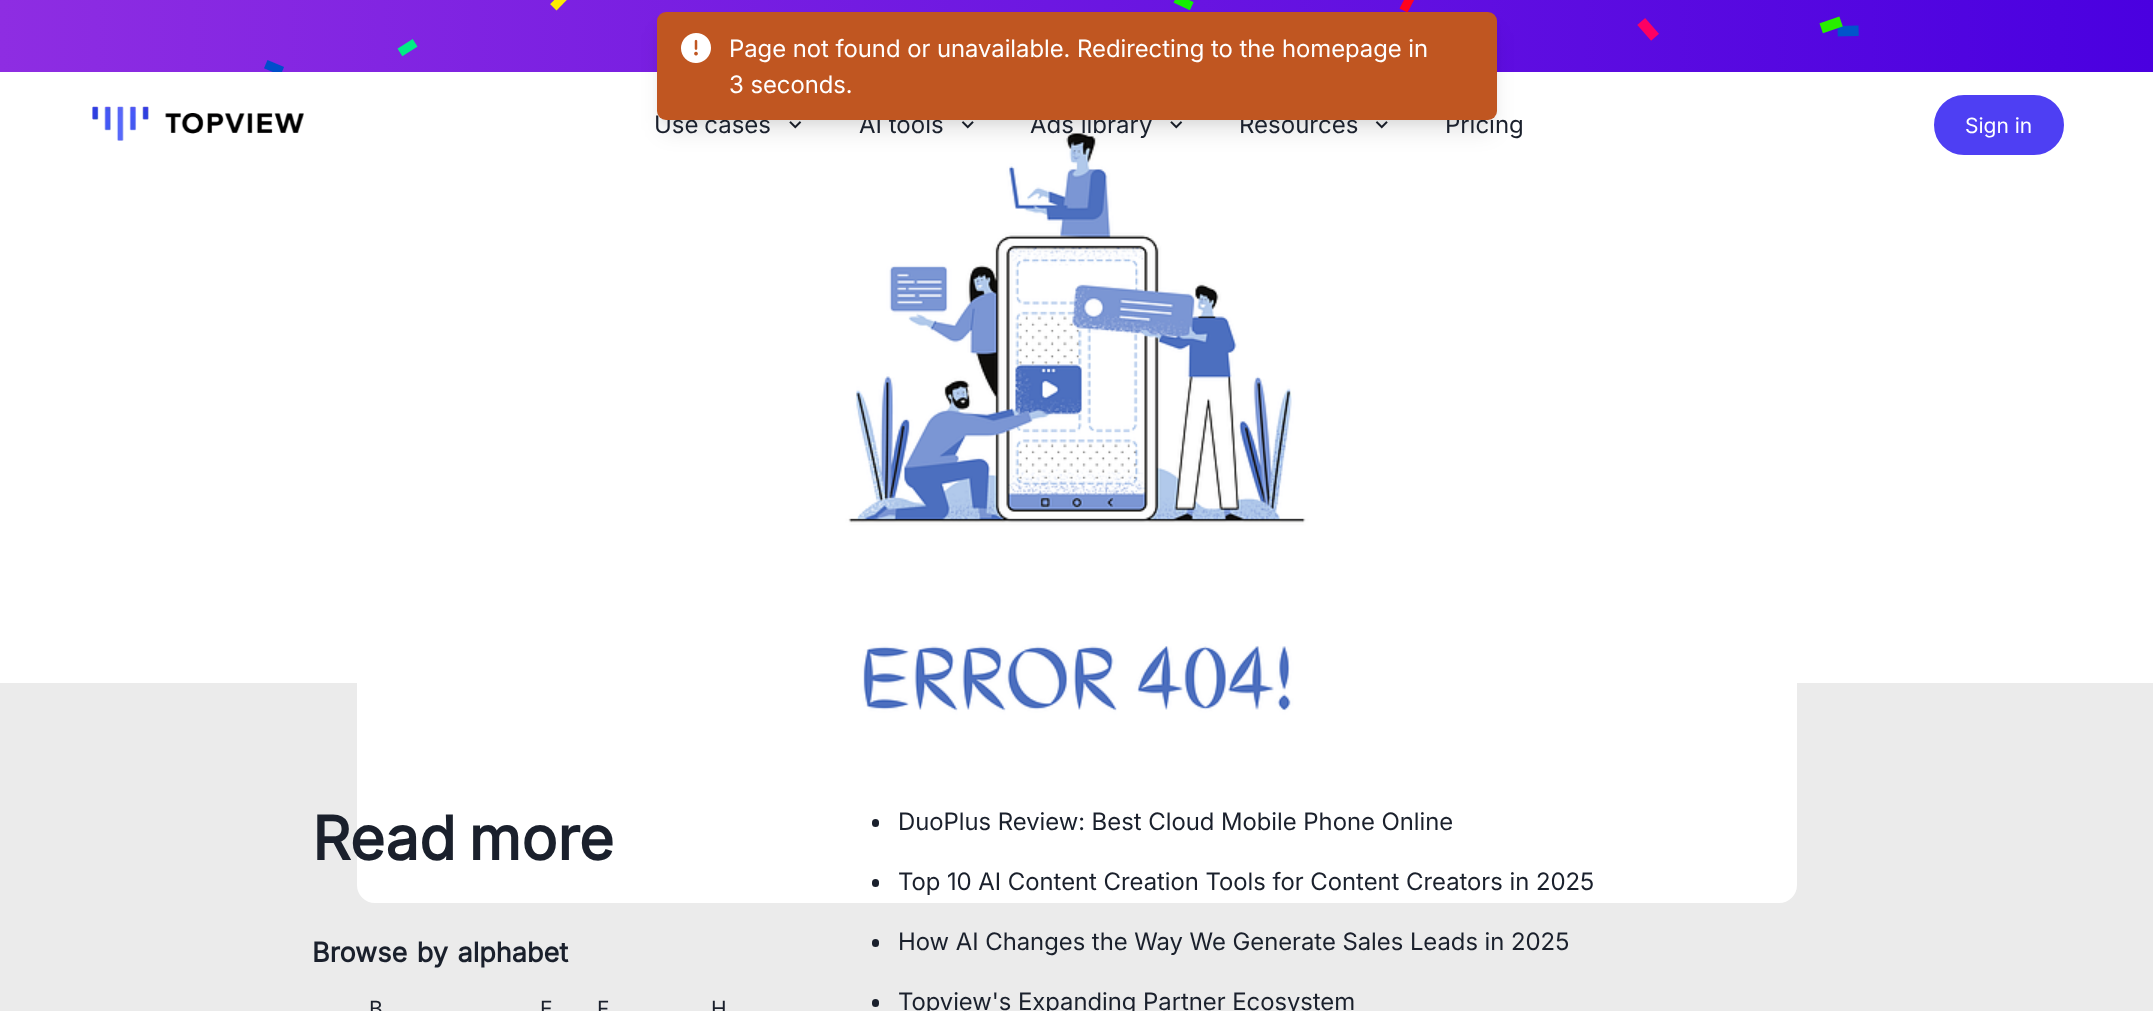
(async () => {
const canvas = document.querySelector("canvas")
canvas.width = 2153
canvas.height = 1011
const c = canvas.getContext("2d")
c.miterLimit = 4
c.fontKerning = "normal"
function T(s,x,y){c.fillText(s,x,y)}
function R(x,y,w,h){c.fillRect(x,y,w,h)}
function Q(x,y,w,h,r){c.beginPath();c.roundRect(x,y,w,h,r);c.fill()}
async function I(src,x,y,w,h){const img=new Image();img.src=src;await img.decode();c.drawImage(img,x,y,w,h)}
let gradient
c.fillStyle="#fff"
R(0,0,2153,1011)
gradient = c.createLinearGradient(0,36,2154,36)
gradient.addColorStop(0,"#8e2de2")
gradient.addColorStop(1,"#4a00e0")
c.fillStyle = gradient
R(0,0,2153,72)
await I("2.png",264,0,1595,72)
await I("4.png",789,121,13,8)
await I("5.png",961,121,13,8)
await I("4.png",1170,121,13,8)
await I("5.png",1375,121,13,8)
c.fillStyle="#ebebeb"
R(0,683,2153,328)
await I("6.png",357,133,1440,770)
c.fillStyle="#0000000d"
c.filter="blur(4.5px)"
c.beginPath()
c.roundRect(660,21,834,102,6)
c.fill()
c.filter="none"
c.fillStyle="#0000001a"
c.filter="blur(11px)"
c.beginPath()
c.roundRect(662,32,831,99,5)
c.fill()
c.filter="none"
c.wordSpacing="-1px"
c.font="24px Inter"
c.fillStyle="#1a202c"
T("Use cases",654,133)
c.wordSpacing="0px"
T("AI tools",859,133)
T("Ads library",1030,133)
T("Resources",1239,133)
T("Pricing",1445,133)
c.fillStyle="#c05621"
Q(657,12,840,108,9)
await I("1.png",681,33,30,30)
c.font="24px 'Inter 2'"
c.fillStyle="#fff"
T("Page not found or unavailable. Redirecting to the homepage in",729,57)
T("3 seconds.",729,93)
await I("3.png",92,106,212,35)
c.fillStyle="#4e3ff3"
c.beginPath()
c.roundRect(1935,96,128,58,29)
c.fill()
c.strokeStyle="#4e3ff3"
c.lineWidth=2
c.stroke()
c.font="21px Inter"
c.fillStyle="#fff"
T("Sign in",1965,133)
c.wordSpacing="-4px"
c.font="bold 60px Inter"
c.fillStyle="#1a202c"
T("Read more",312,860)
c.wordSpacing="2px"
c.font="bold 27px Inter"
T("Browse by alphabet",312,962)
c.wordSpacing="0px"
c.font="21px Inter"
T("B",369,1016)
T("E",540,1016)
T("F",597,1016)
T("H",711,1016)
Q(872,819,7,8,3.5)
c.font="24px 'Inter 2'"
T("DuoPlus Review: Best Cloud Mobile Phone Online",898,830)
Q(872,879,7,8,3.5)
T("Top 10 AI Content Creation Tools for Content Creators in 2025",898,890)
Q(872,939,7,8,3.5)
T("How AI Changes the Way We Generate Sales Leads in 2025",898,950)
Q(872,999,7,8,3.5)
T("Topview's Expanding Partner Ecosystem",898,1010)
})()
